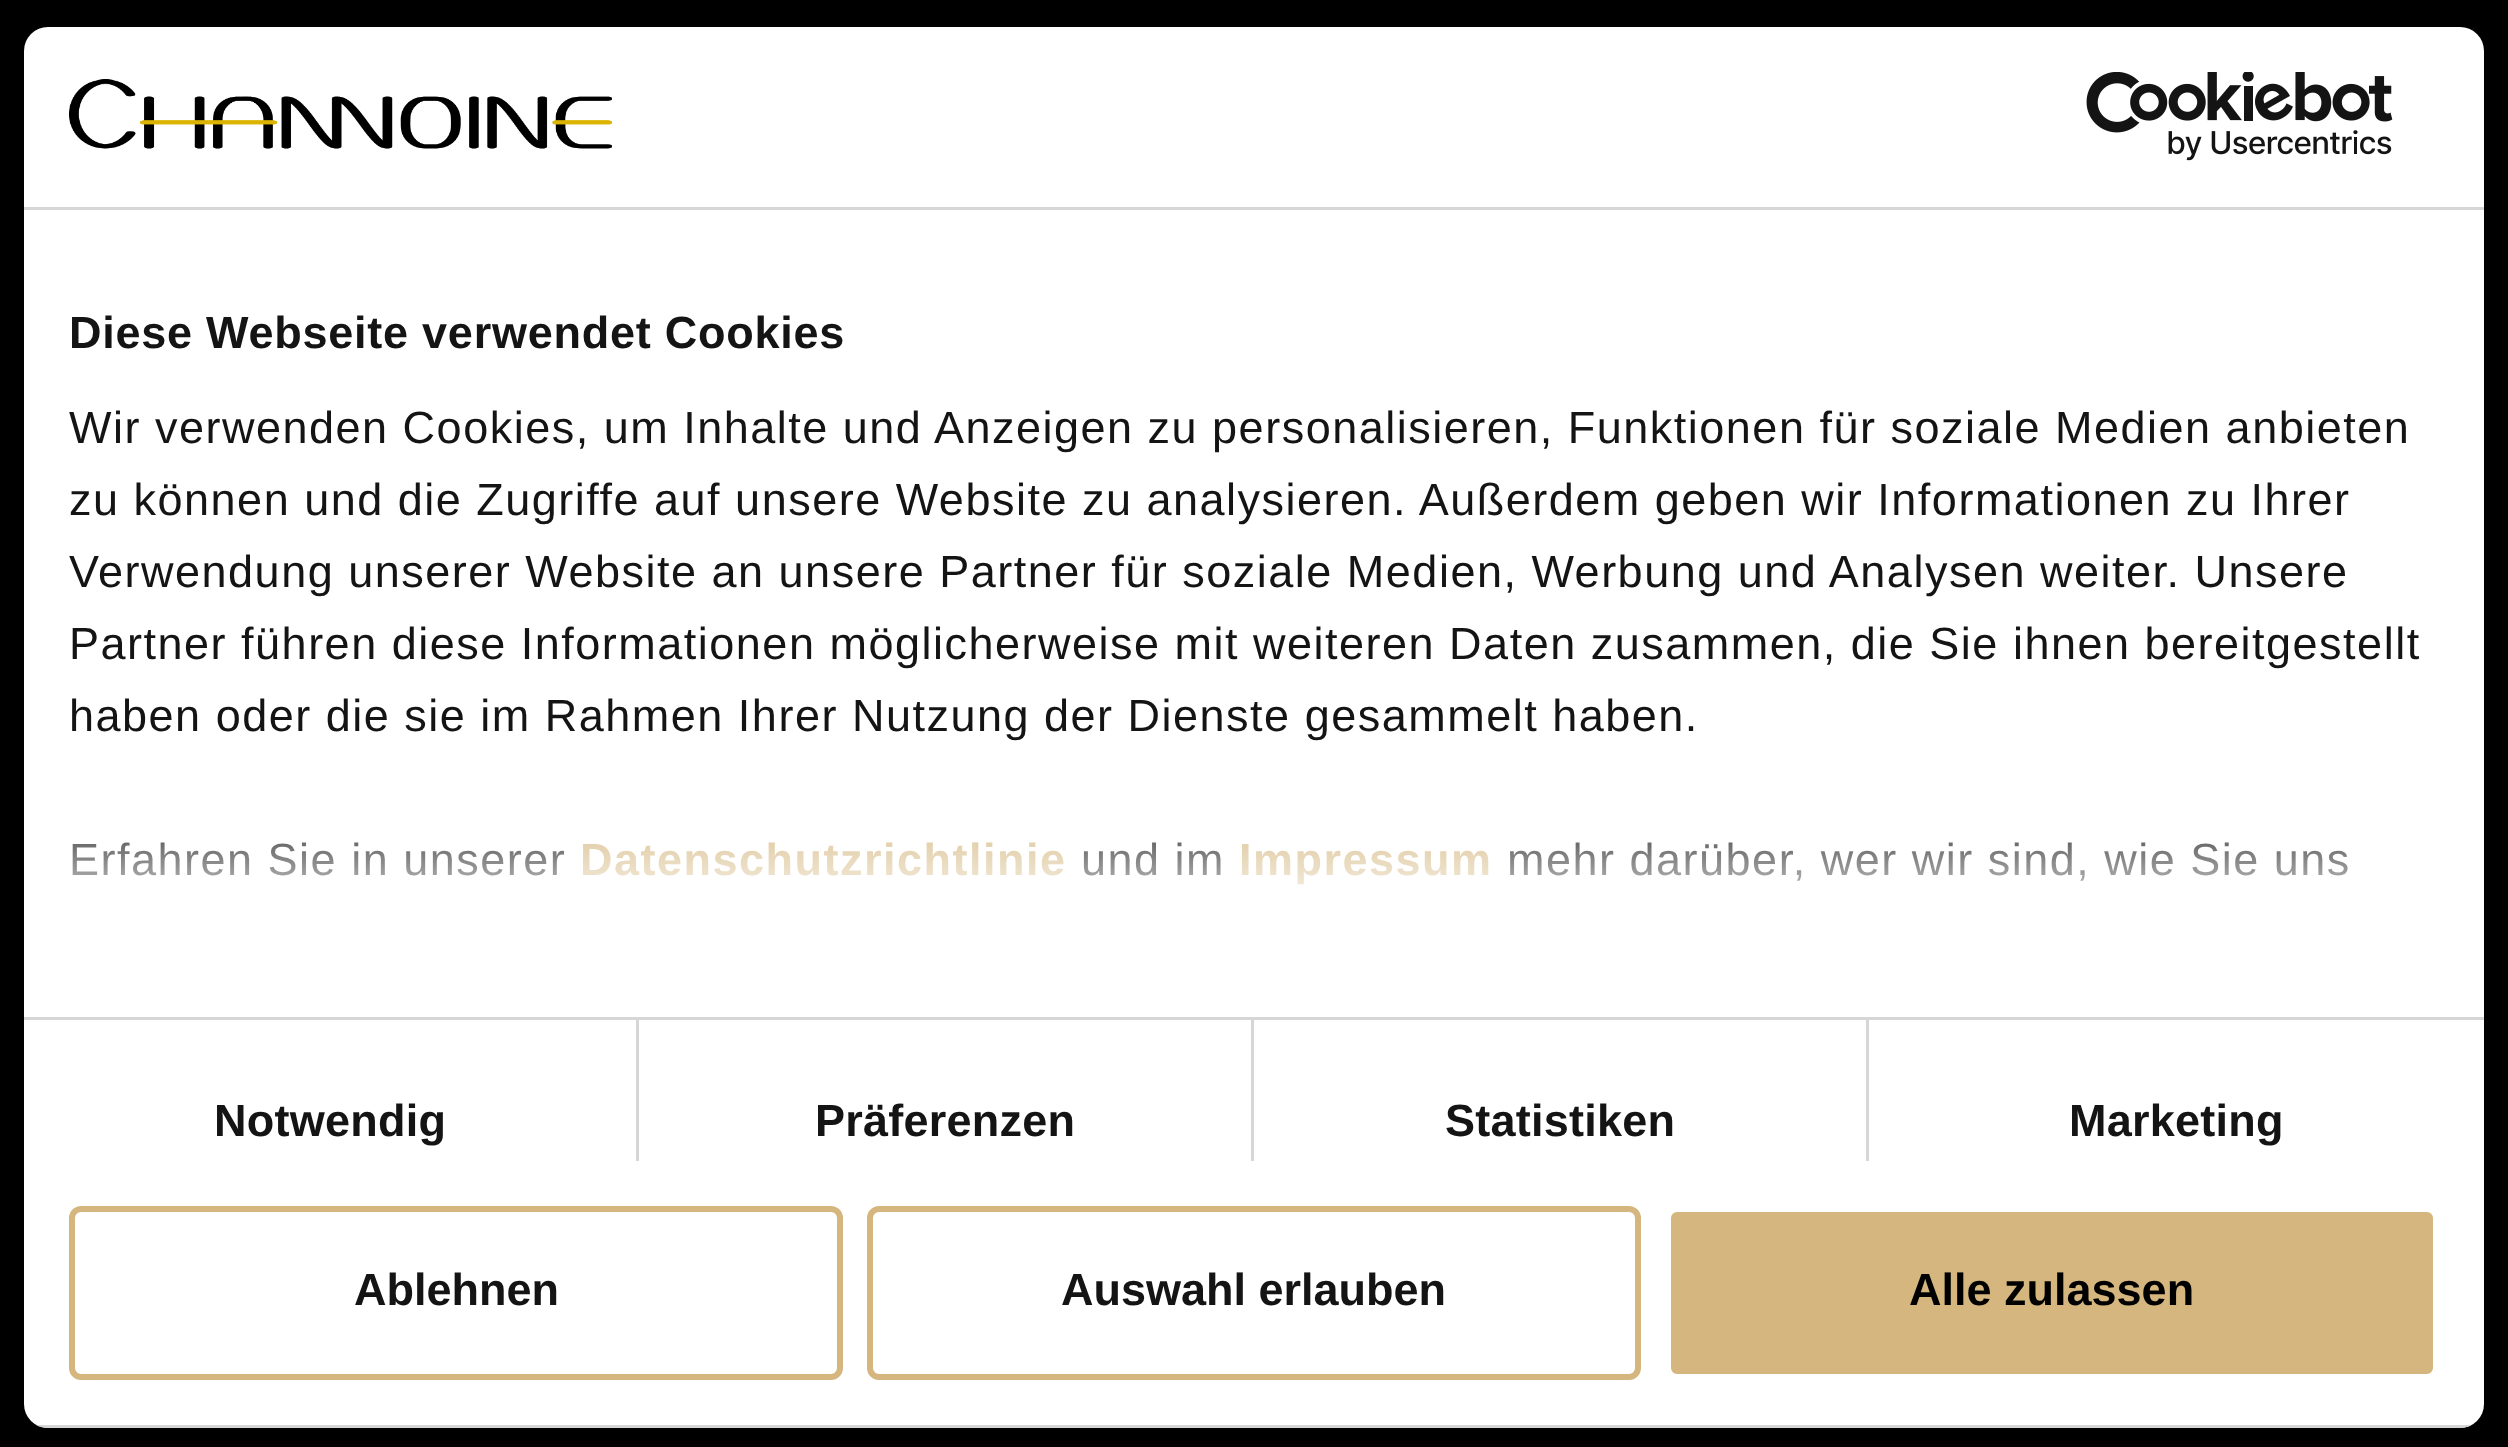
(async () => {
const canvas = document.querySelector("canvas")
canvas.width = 2508
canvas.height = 1447
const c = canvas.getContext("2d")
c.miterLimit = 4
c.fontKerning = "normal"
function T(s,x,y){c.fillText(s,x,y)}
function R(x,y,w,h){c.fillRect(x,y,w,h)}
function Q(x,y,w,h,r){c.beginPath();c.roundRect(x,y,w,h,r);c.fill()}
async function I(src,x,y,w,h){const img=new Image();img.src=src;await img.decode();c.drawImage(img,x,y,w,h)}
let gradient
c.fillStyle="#000"
R(0,0,2508,1447)
c.fillStyle="#fff"
Q(24,27,2460,1401,24)
c.fillStyle="#d6d6d6"
R(24,207,2460,3)
await I("1.png",69,79,543,70)
await I("2.png",2086,72,307,89)
R(24,1017,2460,3)
c.letterSpacing="0.75px"
c.font="bold 45px Liberation Sans"
c.fillStyle="#141414"
T("Diese Webseite verwendet Cookies",69,348)
c.letterSpacing="1.5px"
c.font="45px Liberation Sans"
T("Wir verwenden Cookies, um Inhalte und Anzeigen zu personalisieren, Funktionen für soziale Medien anbieten",69,443)
T("zu können und die Zugriffe auf unsere Website zu analysieren. Außerdem geben wir Informationen zu Ihrer",69,515)
T("Verwendung unserer Website an unsere Partner für soziale Medien, Werbung und Analysen weiter. Unsere",69,587)
T("Partner führen diese Informationen möglicherweise mit weiteren Daten zusammen, die Sie ihnen bereitgestellt",69,659)
T("haben oder die sie im Rahmen Ihrer Nutzung der Dienste gesammelt haben.",69,731)
T("Erfahren Sie in unserer",69,875)
c.font="bold 45px Liberation Sans"
c.fillStyle="#d4b67e"
T("Datenschutzrichtlinie",580,875)
c.font="45px Liberation Sans"
c.fillStyle="#141414"
T("und im",1081,875)
c.font="bold 45px Liberation Sans"
c.fillStyle="#d4b67e"
T("Impressum",1239,875)
c.font="45px Liberation Sans"
c.fillStyle="#141414"
T("mehr darüber, wer wir sind, wie Sie uns",1507,875)
gradient = c.createLinearGradient(1235,1016,1235,791)
gradient.addColorStop(0,"#fff")
gradient.addColorStop(.5,"#ffffffcc")
gradient.addColorStop(1,"#ffffff00")
c.fillStyle = gradient
R(72,842,2276,43)
c.fillStyle="#d6d6d6"
R(636,1020,3,141)
c.letterSpacing="0.25px"
c.font="bold 45px Liberation Sans"
c.fillStyle="#141414"
T("Notwendig",214,1136)
c.fillStyle="#d6d6d6"
R(1251,1020,3,141)
c.fillStyle="#141414"
T("Präferenzen",815,1136)
c.fillStyle="#d6d6d6"
R(1866,1020,3,141)
c.fillStyle="#141414"
T("Statistiken",1445,1136)
T("Marketing",2069,1136)
c.save()
c.beginPath()
c.roundRect(24,27,2460,1401,24)
c.clip()
c.fillStyle="#d6d6d6"
R(36,1425,2436,3)
c.restore()
c.beginPath()
c.roundRect(72,1209,768,168,9)
c.strokeStyle="#d4b67e"
c.lineWidth=6
c.stroke()
c.letterSpacing="0px"
T("Ablehnen",354,1305)
c.beginPath()
c.roundRect(870,1209,768,168,9)
c.stroke()
T("Auswahl erlauben",1061,1305)
c.fillStyle="#d4b67e"
c.beginPath()
c.roundRect(1668,1209,768,168,9)
c.fill()
c.strokeStyle="#fff"
c.stroke()
c.fillStyle="#000"
T("Alle zulassen",1909,1305)
})()
